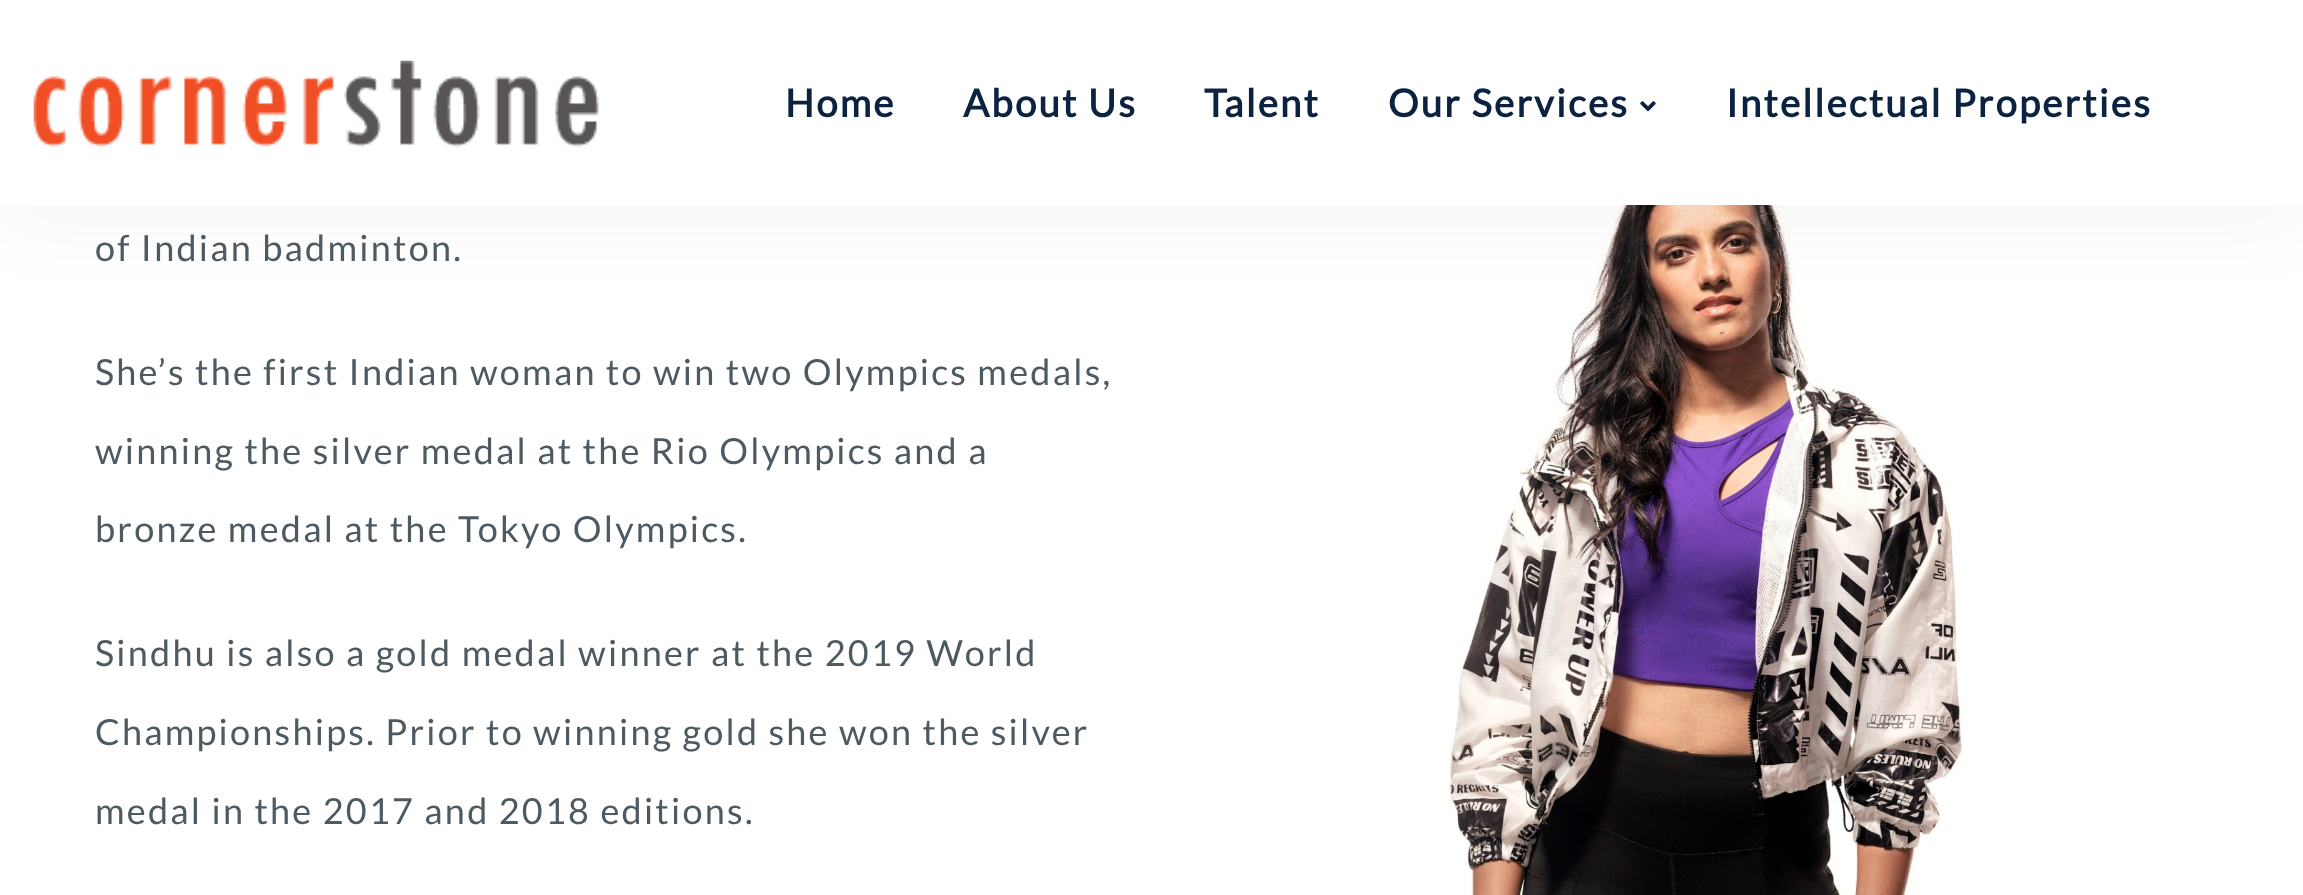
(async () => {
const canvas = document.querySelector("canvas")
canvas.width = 2303
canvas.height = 895
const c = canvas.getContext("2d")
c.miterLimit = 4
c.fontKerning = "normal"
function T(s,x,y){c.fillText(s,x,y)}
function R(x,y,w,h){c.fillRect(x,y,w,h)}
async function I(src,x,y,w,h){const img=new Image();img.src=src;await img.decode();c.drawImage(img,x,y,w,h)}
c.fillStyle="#fff"
R(0,0,2303,895)
await I("3.png",1445,205,519,690)
c.fillStyle="#0f0f0f0d"
c.filter="blur(45px)"
c.beginPath()
c.rect(0,5,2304,204)
c.fill()
c.filter="none"
c.fillStyle="#fff"
R(0,0,2303,205)
await I("1.png",33,60,566,87)
c.letterSpacing="2.25px"
c.font="bold 38.25px Lato"
c.fillStyle="#0b2341"
T("Home",785,117)
T("About Us",963,117)
T("Talent",1204,117)
T("Our Services",1388,117)
await I("2.png",1640,101,16,11)
T("Intellectual Properties",1726,117)
c.font="36px Lato"
c.fillStyle="#4d5a62"
T("of Indian badminton.",95,261)
T("She’s the first Indian woman to win two Olympics medals,",95,385)
T("winning the silver medal at the Rio Olympics and a",95,464)
T("bronze medal at the Tokyo Olympics.",95,542)
T("Sindhu is also a gold medal winner at the 2019 World",95,666)
T("Championships. Prior to winning gold she won the silver",95,745)
T("medal in the 2017 and 2018 editions.",95,824)
})()
